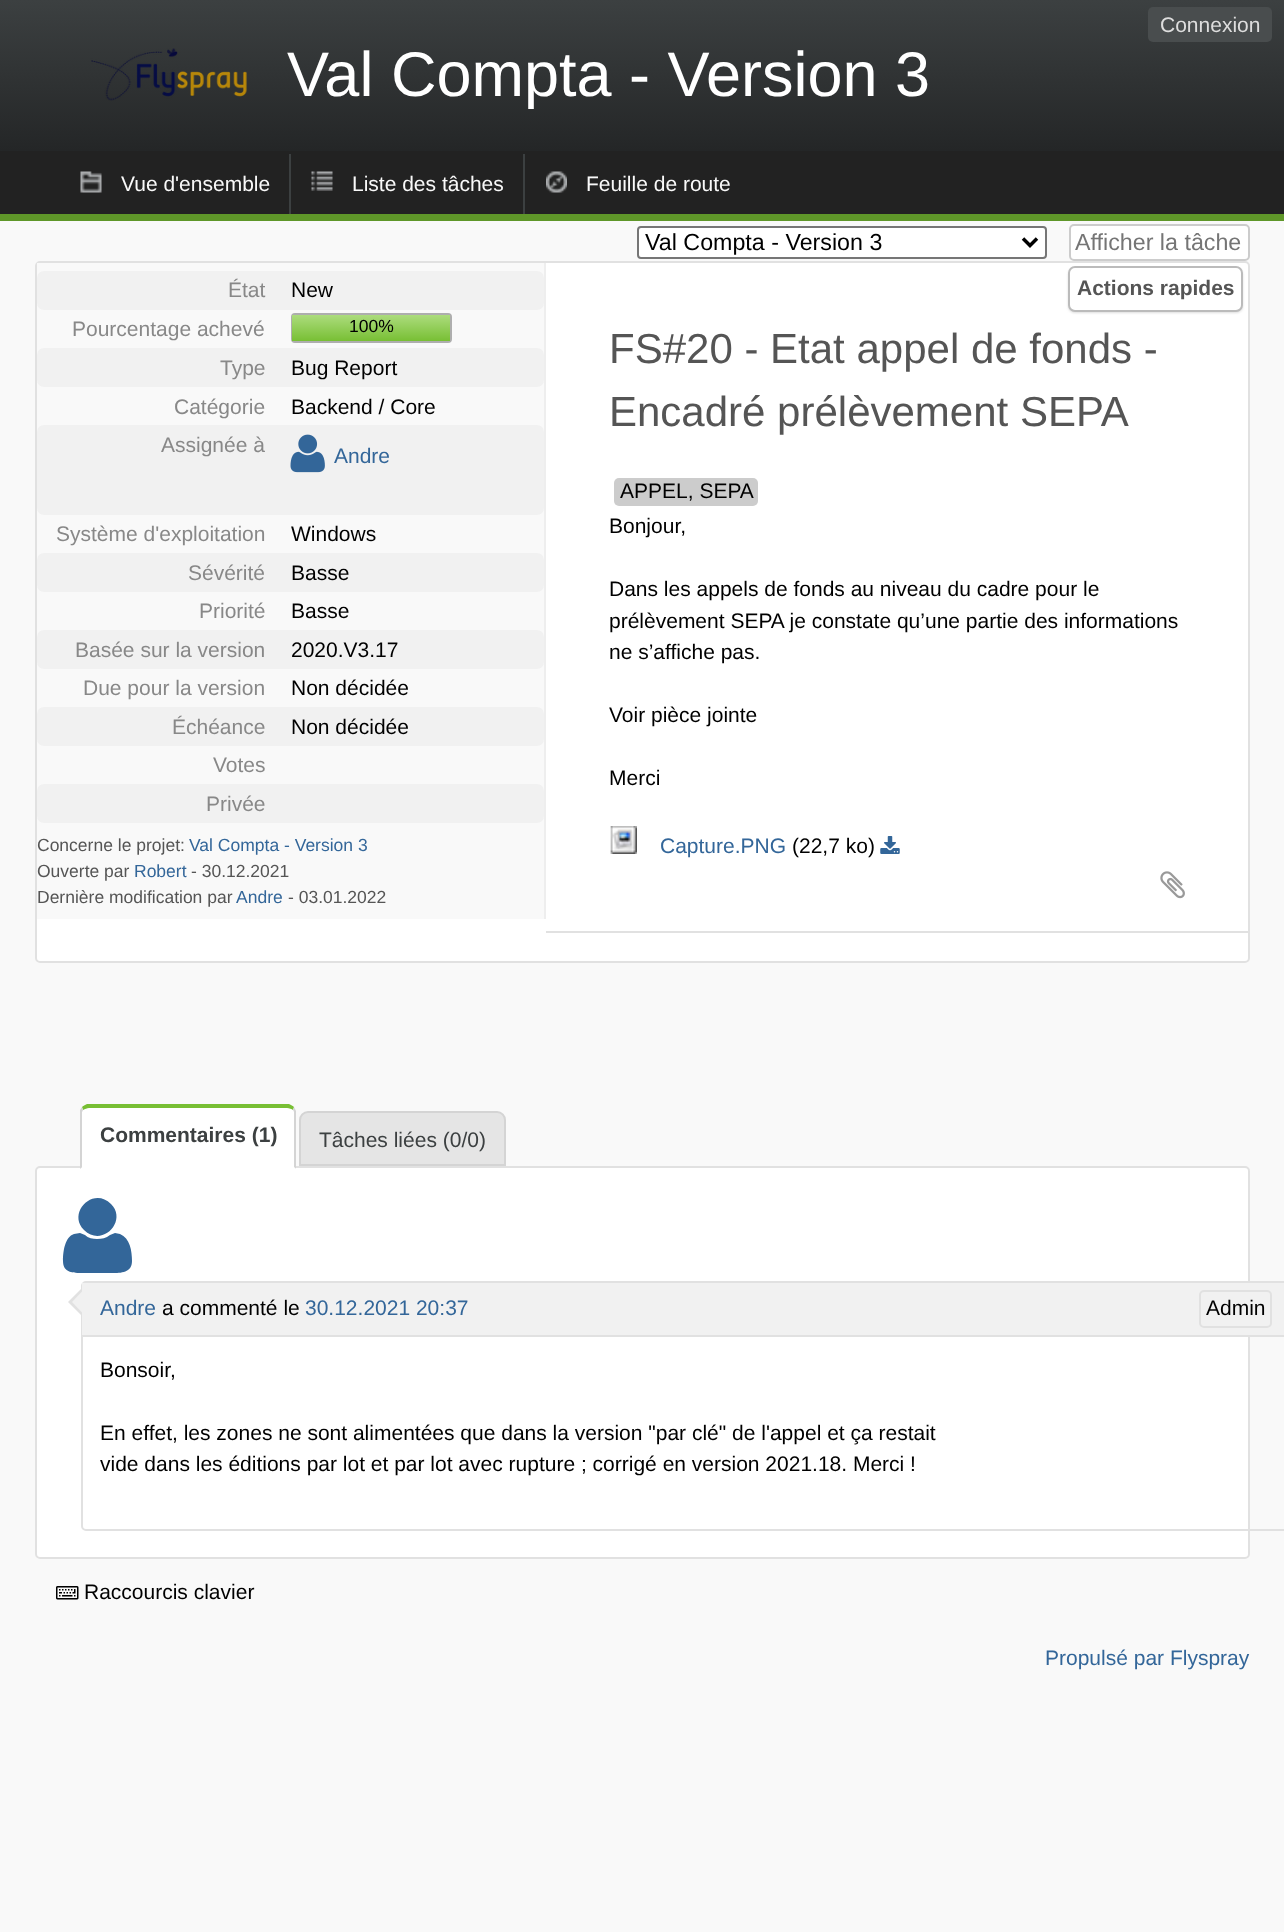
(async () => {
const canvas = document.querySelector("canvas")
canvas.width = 1284
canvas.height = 1932
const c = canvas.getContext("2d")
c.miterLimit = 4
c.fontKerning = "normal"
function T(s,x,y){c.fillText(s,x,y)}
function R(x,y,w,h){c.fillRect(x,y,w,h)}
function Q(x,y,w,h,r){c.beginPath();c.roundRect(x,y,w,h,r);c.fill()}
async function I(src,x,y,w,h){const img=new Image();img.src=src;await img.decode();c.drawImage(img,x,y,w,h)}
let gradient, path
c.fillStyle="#f9f9f9"
R(0,0,1284,1932)
gradient = c.createLinearGradient(642,0,642,151)
gradient.addColorStop(0,"#3c4041")
gradient.addColorStop(1,"#242627")
c.fillStyle = gradient
R(0,0,1284,151)
c.fillStyle="#494d4e"
Q(1148,7,124,35,5)
c.font="21px Liberation Sans"
c.fillStyle="#ddd"
T("Connexion",1160,32)
await I("1.png",91,48,156,53)
c.font="63px Liberation Sans"
c.fillStyle="#fff"
T("Val Compta - Version 3",287,96)
c.fillStyle="#222"
R(0,151,1284,63)
c.fillStyle="#5f9729"
R(0,214,1284,7)
await I("2.png",80,171,22,22)
c.font="21px Liberation Sans"
c.fillStyle="#f9f9f9"
T("Vue d'ensemble",121,191)
await I("3.png",311,171,22,20)
c.fillStyle="#3c4041"
R(289,154,2,60)
c.fillStyle="#f9f9f9"
T("Liste des tâches",352,191)
await I("4.png",546,171,21,22)
c.fillStyle="#3c4041"
R(523,154,2,60)
c.fillStyle="#f9f9f9"
T("Feuille de route",586,191)
c.fillStyle="#fff"
c.beginPath()
c.roundRect(638,227,408,31,3)
c.fill()
c.strokeStyle="#767676"
c.lineWidth=2
c.stroke()
path = new Path2D("M1023 238.5l7 7l7-7")
c.strokeStyle="#000"
c.lineWidth=3.5
c.stroke(path)
c.font="23.25px Liberation Sans"
c.fillStyle="#000"
T("Val Compta - Version 3",645,250)
c.fillStyle="#fff"
c.beginPath()
c.roundRect(1070,225,179,35,4)
c.fill()
c.strokeStyle="#ccc"
c.lineWidth=2
c.stroke()
c.fillStyle="#757575"
T("Afficher la tâche",1075,250)
c.fillStyle="#fff"
c.beginPath()
c.roundRect(36,262,1213,700,4)
c.fill()
c.strokeStyle="#e1e1e1"
c.stroke()
c.fillStyle="#f9f9f9"
R(37,263,507,656)
c.fillStyle="#eee"
R(544,263,2,656)
c.fillStyle="#f1f1f1"
Q(37,271,507,39,7)
c.font="21px Liberation Sans"
c.fillStyle="#888"
T("État",228,297)
c.fillStyle="#000"
T("New",291,297)
c.fillStyle="#888"
T("Pourcentage achevé",72,336)
c.beginPath()
c.roundRect(292,314,159,28,3)
c.strokeStyle="#aeaeae"
c.stroke()
gradient = c.createLinearGradient(371,315,371,341)
gradient.addColorStop(0,"#acdc7d")
gradient.addColorStop(1,"#78bf34")
c.fillStyle = gradient
R(292,315,158,26)
c.font="17.5px Liberation Sans"
c.fillStyle="#000"
T("100%",349,332)
c.fillStyle="#f1f1f1"
Q(37,348,507,39,7)
c.font="21px Liberation Sans"
c.fillStyle="#888"
T("Type",220,375)
c.fillStyle="#000"
T("Bug Report",291,375)
c.fillStyle="#888"
T("Catégorie",174,414)
c.fillStyle="#000"
T("Backend / Core",291,414)
c.fillStyle="#f1f1f1"
Q(37,425,507,90,7)
c.fillStyle="#888"
T("Assignée à",161,452)
await I("5.png",290,434,35,39)
c.fillStyle="#369"
T("Andre",334,463)
c.fillStyle="#888"
T("Système d'exploitation",56,541)
c.fillStyle="#000"
T("Windows",291,541)
c.fillStyle="#f1f1f1"
Q(37,553,507,39,7)
c.fillStyle="#888"
T("Sévérité",188,580)
c.fillStyle="#000"
T("Basse",291,580)
c.fillStyle="#888"
T("Priorité",199,618)
c.fillStyle="#000"
T("Basse",291,618)
c.fillStyle="#f1f1f1"
Q(37,630,507,39,7)
c.fillStyle="#888"
T("Basée sur la version",75,657)
c.fillStyle="#000"
T("2020.V3.17",291,657)
c.fillStyle="#888"
T("Due pour la version",83,695)
c.fillStyle="#000"
T("Non décidée",291,695)
c.fillStyle="#f1f1f1"
Q(37,707,507,39,7)
c.fillStyle="#888"
T("Échéance",172,734)
c.fillStyle="#000"
T("Non décidée",291,734)
c.fillStyle="#888"
T("Votes",213,772)
c.fillStyle="#f1f1f1"
Q(37,784,507,39,7)
c.fillStyle="#888"
T("Privée",206,811)
c.font="17.5px Liberation Sans"
c.fillStyle="#555"
T("Concerne le projet:",37,851)
c.fillStyle="#369"
T("Val Compta - Version 3",189,851)
c.fillStyle="#555"
T("Ouverte par",37,877)
c.fillStyle="#369"
T("Robert",134,877)
c.fillStyle="#555"
T("- 30.12.2021",191,877)
T("Dernière modification par",37,903)
c.fillStyle="#369"
T("Andre",236,903)
c.fillStyle="#555"
T("- 03.01.2022",288,903)
c.font="42px Liberation Sans"
T("FS#20 - Etat appel de fonds -",609,363)
T("Encadré prélèvement SEPA",609,426)
c.fillStyle="#ccc"
Q(614,478,144,28,5)
c.font="21px Liberation Sans"
c.fillStyle="#000"
T("APPEL, SEPA",620,498)
T("Bonjour,",609,533)
T("Dans les appels de fonds au niveau du cadre pour le",609,596)
T("prélèvement SEPA je constate qu’une partie des informations",609,628)
T("ne s’affiche pas.",609,659)
T("Voir pièce jointe",609,722)
T("Merci",609,785)
await I("6.png",610,826,27,28)
c.fillStyle="#369"
T("Capture.PNG",660,853)
c.fillStyle="#000"
T("(22,7 ko)",792,853)
await I("7.png",880,836,20,18)
await I("8.png",1160,871,25,28)
c.fillStyle="#e1e1e1"
R(546,931,702,2)
c.fillStyle="#ddd"
c.filter="blur(1px)"
c.beginPath()
c.roundRect(1068,268,175,45,7)
c.fill()
c.filter="none"
c.fillStyle="#fff"
c.beginPath()
c.roundRect(1069,267,173,44,6)
c.fill()
c.strokeStyle="#bbb"
c.stroke()
c.font="bold 21px Liberation Sans"
c.fillStyle="#555"
T("Actions rapides",1077,295)
c.fillStyle="#fff"
c.beginPath()
c.roundRect(36,1167,1213,391,4)
c.fill()
c.strokeStyle="#e1e1e1"
c.stroke()
path = new Path2D("M89 1108h198c4 0 7 2 7 5v54h-212v-54c0-3 3-5 7-5z")
c.fill(path)
c.fillStyle="#78bf34"
path = new Path2D("M89 1108c-2 0-4 1-6 2l-1-3c1-1 3-2 5-3h202c2 1 4 2 5 3l-1 3c-1-1-4-2-6-2z")
c.fill(path)
c.fillStyle="#d4d4d4"
path = new Path2D("M296 1111v58l-2-2v-54c0-1 0-2-1-3l1-3z")
c.fill(path)
c.fillStyle="#fff"
path = new Path2D("M296 1169l-2-2h-212l-2 2z")
c.fill(path)
c.fillStyle="#d4d4d4"
path = new Path2D("M80 1169v-59l2-3l1 3l-1 2v55z")
c.fill(path)
c.fillStyle="#3c4041"
T("Commentaires (1)",100,1142)
c.fillStyle="#e5e5e5"
c.beginPath()
c.roundRect(300,1112,205,53,[8,8,0,0])
c.fill()
c.strokeStyle="#d4d4d4"
c.stroke()
c.font="21px Liberation Sans"
c.fillStyle="#3c4041"
T("Tâches liées (0/0)",319,1147)
c.fillStyle="#369"
path = new Path2D("M132 1261c0 12-11 12-20 12h-29c-10 0-20 0-20-12c0-10 2-24 11-27l6-1l5 2c3 3 8 4 12 4c5 0 9-1 13-4l5-2l5 1c10 4 12 17 12 27zm-21-57c17 17-9 44-27 26c-17-17 9-44 27-26z")
c.fill(path)
c.beginPath()
c.roundRect(82,1282,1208,248,4)
c.strokeStyle="#e1e1e1"
c.stroke()
c.fillStyle="#e1e1e1"
path = new Path2D("M82 1288v28l-14-14z")
c.fill(path)
c.fillStyle="#f1f1f1"
path = new Path2D("M82 1291.5v21l-10-10.5z")
c.fill(path)
R(82,1283,1202,52)
c.fillStyle="#e1e1e1"
R(82,1335,1202,2)
c.fillStyle="#369"
T("Andre",100,1315)
c.fillStyle="#000"
T("a commenté le",162,1315)
c.fillStyle="#369"
T("30.12.2021 20:37",305,1315)
c.beginPath()
c.roundRect(1200,1291,71,36,4)
c.stroke()
c.fillStyle="#000"
T("Admin",1206,1315)
T("Bonsoir,",100,1377)
T("En effet, les zones ne sont alimentées que dans la version \"par clé\" de l'appel et ça restait",100,1440)
T("vide dans les éditions par lot et par lot avec rupture ; corrigé en version 2021.18. Merci !",100,1471)
await I("9.png",56,1586,23,14)
T("Raccourcis clavier",84,1599)
c.fillStyle="#369"
T("Propulsé par Flyspray",1045,1665)
})()
